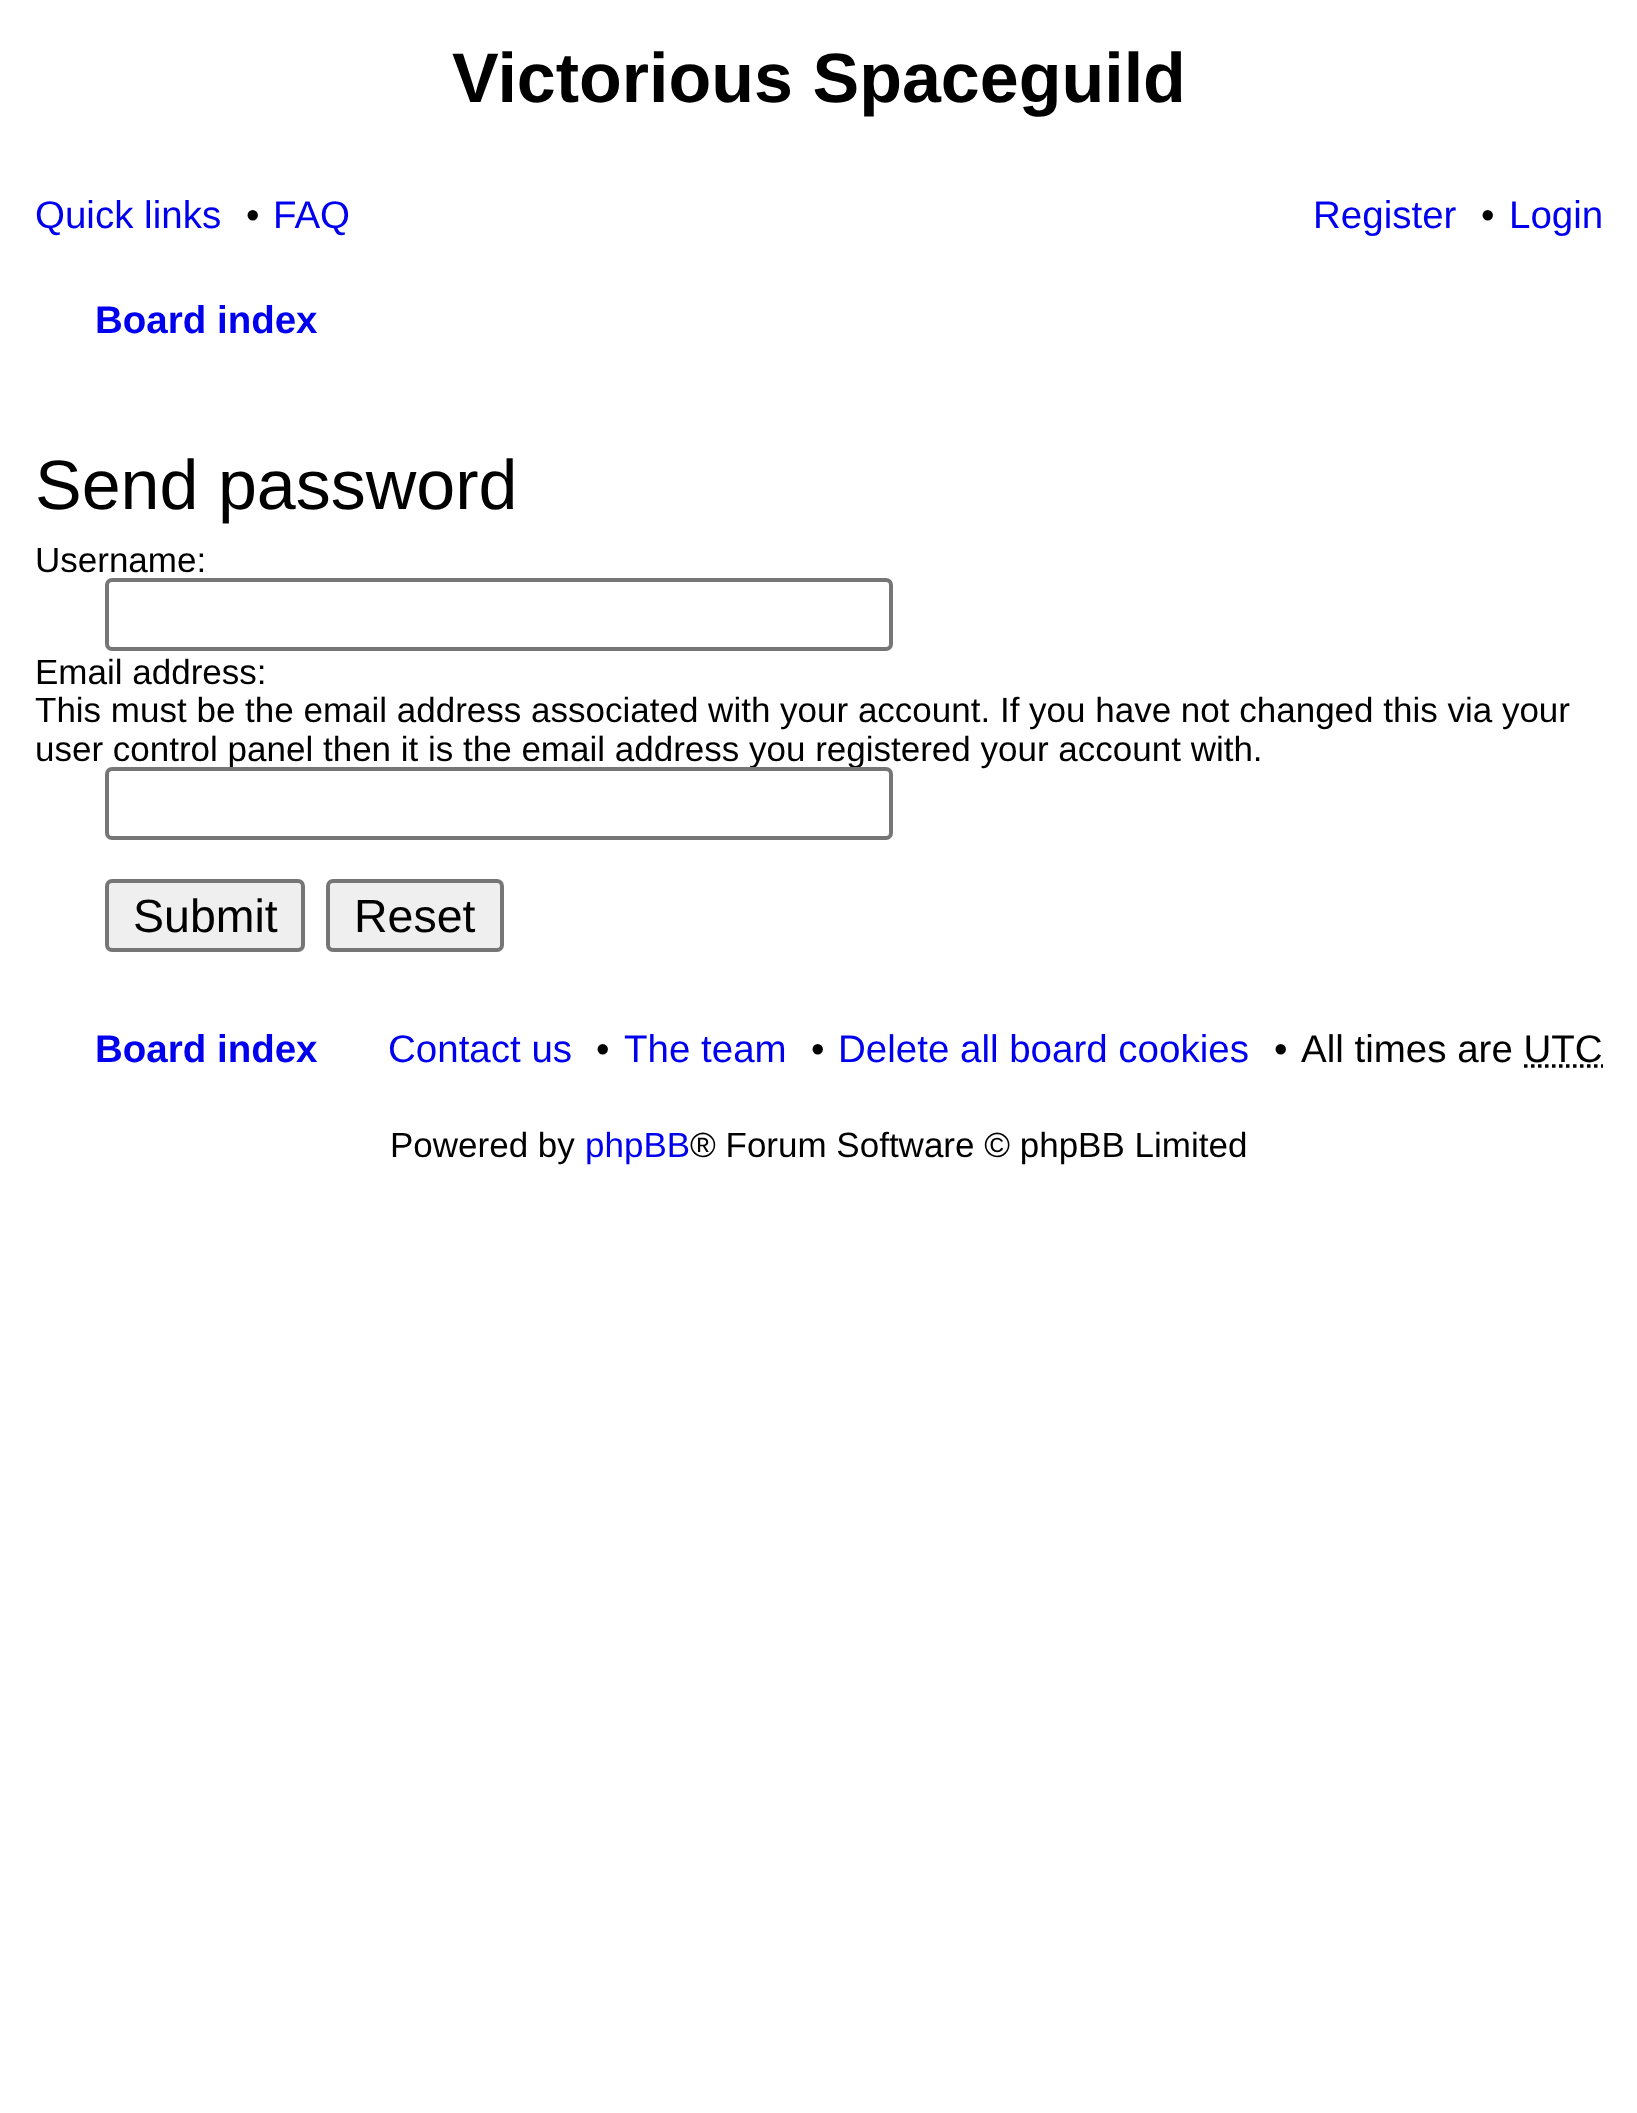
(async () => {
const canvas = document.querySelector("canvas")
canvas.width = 1637
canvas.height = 2113
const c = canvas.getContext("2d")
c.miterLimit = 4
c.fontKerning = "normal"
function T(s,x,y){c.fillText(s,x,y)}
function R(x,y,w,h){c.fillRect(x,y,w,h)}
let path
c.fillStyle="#fff"
R(0,0,1637,2113)
c.font="bold 70px Liberation Sans"
c.fillStyle="#000"
T("Victorious Spaceguild",452,102)
c.font="38.5px Liberation Sans"
c.fillStyle="#00e"
T("Quick links",35,228)
c.fillStyle="#000"
T("•",246,228)
c.fillStyle="#00e"
T("FAQ",273,228)
T("Register",1313,228)
c.fillStyle="#000"
T("•",1481,228)
c.fillStyle="#00e"
T("Login",1509,228)
c.font="bold 38.5px Liberation Sans"
T("Board index",95,333)
c.font="70px Liberation Sans"
c.fillStyle="#000"
T("Send password",35,509)
c.font="35px Liberation Sans"
T("Username:",35,572)
c.beginPath()
c.roundRect(107,580,784,69,5)
c.strokeStyle="#767676"
c.lineWidth=4
c.stroke()
T("Email address:",35,684)
T("This must be the email address associated with your account. If you have not changed this via your",35,722)
T("user control panel then it is the email address you registered your account with.",35,761)
c.fillStyle="#fff"
c.beginPath()
c.roundRect(107,769,784,69,5)
c.fill()
c.stroke()
c.fillStyle="#efefef"
c.beginPath()
c.roundRect(107,881,196,69,5)
c.fill()
c.stroke()
c.font="46.5px Liberation Sans"
c.fillStyle="#000"
T("Submit",133,932)
c.fillStyle="#efefef"
c.beginPath()
c.roundRect(328,881,174,69,5)
c.fill()
c.stroke()
c.fillStyle="#000"
T("Reset",354,932)
c.font="bold 38.5px Liberation Sans"
c.fillStyle="#00e"
T("Board index",95,1062)
c.font="38.5px Liberation Sans"
T("Contact us",388,1062)
c.fillStyle="#000"
T("•",596,1062)
c.fillStyle="#00e"
T("The team",624,1062)
c.fillStyle="#000"
T("•",811,1062)
c.fillStyle="#00e"
T("Delete all board cookies",838,1062)
c.fillStyle="#000"
T("•",1274,1062)
T("All times are UTC",1301,1062)
path = new Path2D("M1524 1066h79")
c.strokeStyle="#000"
c.lineWidth=3.5
c.setLineDash([3.5,3.5])
c.stroke(path)
c.font="35px Liberation Sans"
T("Powered by",390,1157)
c.fillStyle="#00e"
T("phpBB",585,1157)
c.fillStyle="#000"
T("® Forum Software © phpBB Limited",690,1157)
})()
